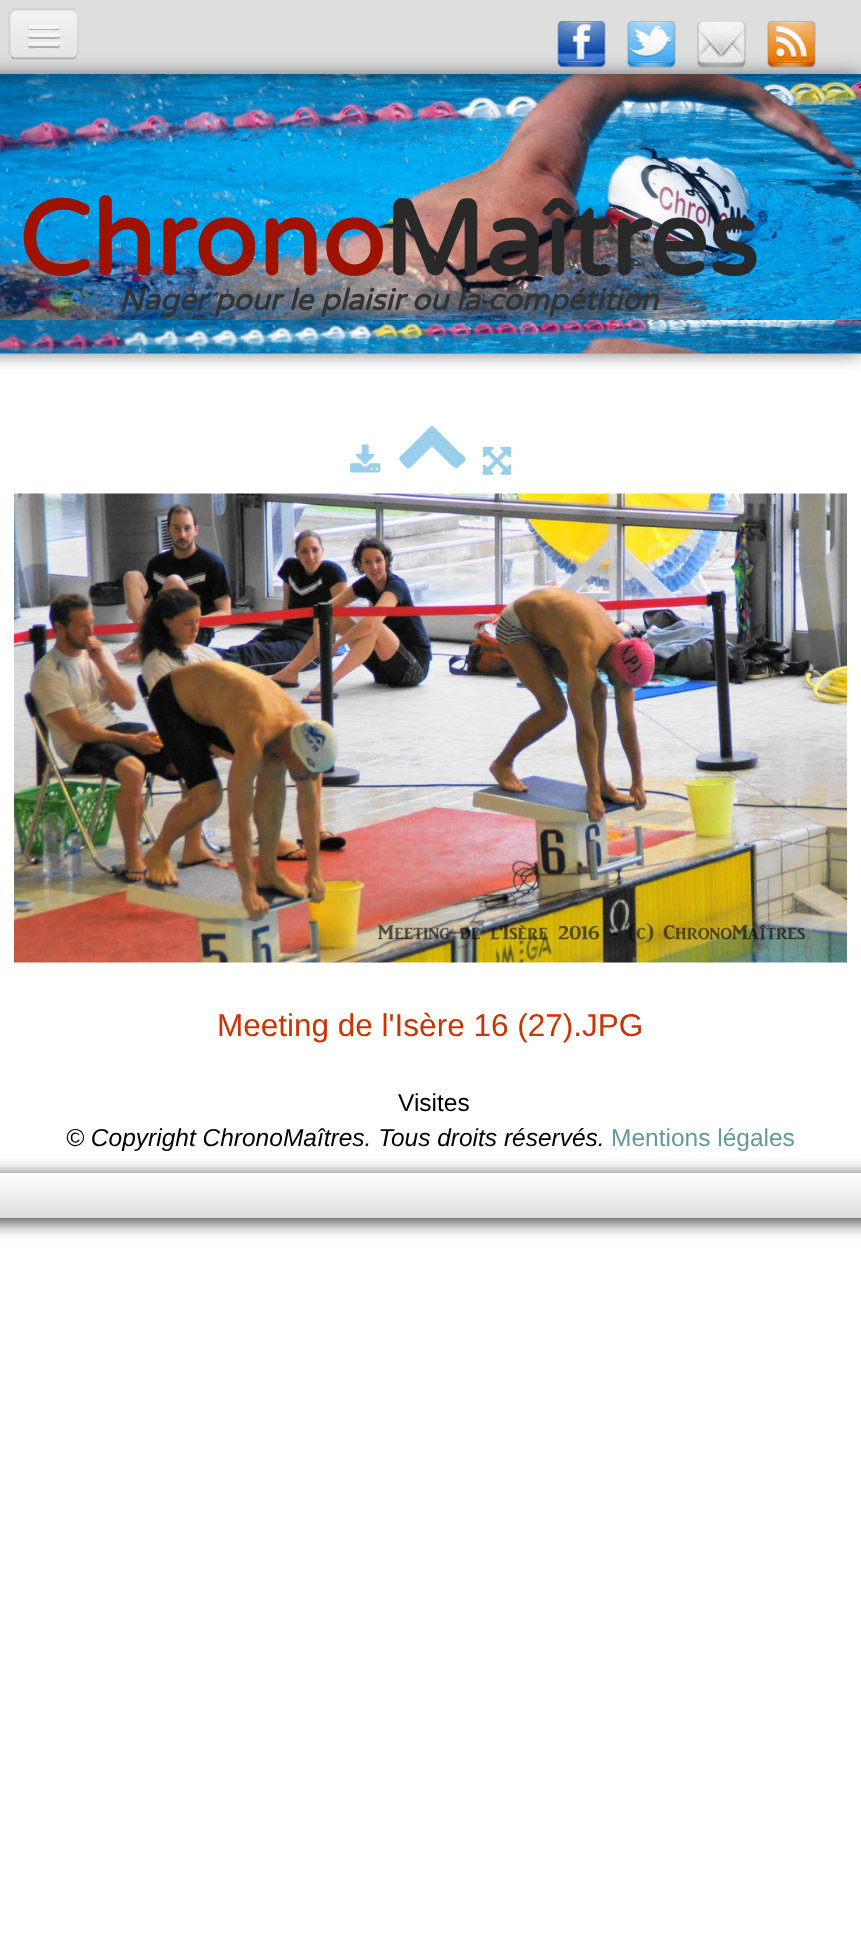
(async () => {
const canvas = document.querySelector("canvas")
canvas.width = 861
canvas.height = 1941
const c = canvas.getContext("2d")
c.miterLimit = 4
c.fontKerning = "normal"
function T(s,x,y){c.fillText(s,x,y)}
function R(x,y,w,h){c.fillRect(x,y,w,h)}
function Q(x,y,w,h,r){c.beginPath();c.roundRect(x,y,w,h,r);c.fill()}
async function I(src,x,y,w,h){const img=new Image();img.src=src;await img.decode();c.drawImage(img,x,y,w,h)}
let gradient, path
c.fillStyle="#fff"
R(0,0,861,1941)
c.fillStyle="#b5b5b5"
R(0,353,861,1)
await I("1.png",0,74,861,280)
c.fillStyle="#00000080"
c.filter="blur(9px)"
c.beginPath()
c.roundRect(-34,0,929,74,7)
c.fill()
c.filter="none"
c.fillStyle="#dedede"
R(0,0,861,74)
c.fillStyle="#ededed"
Q(9,9,70,51,7)
c.save()
c.beginPath()
c.roundRect(9,9,70,51,7)
c.clip()
gradient = c.createLinearGradient(44,10,44,58)
gradient.addColorStop(0,"#f2f2f2")
gradient.addColorStop(1,"#e5e5e5")
c.fillStyle = gradient
R(9,11,70,47)
c.restore()
path = new Path2D("M76 57c-1 1-2.5 1.5-4 1.5h-56c-2 0-3.5-.5-4.5-1.5")
c.strokeStyle="#00000040"
c.lineWidth=1.8
c.stroke(path)
path = new Path2D("M11.5 57c-1-1.5-2-3-2-4.5v-36.5c0-2 1-3.5 2-4.5c1-1 2.5-2 4.5-2h56c1.5 0 3 1 4 2c1 1 2 2.5 2 4.5v36.5c0 1.5-1 3-2 4.5")
c.strokeStyle="#0000001a"
c.stroke(path)
c.fillStyle="#b2b2b2"
path = new Path2D("M28 27c-1.5 4 6 3 6.5 3h19c1 0 6 1 6.5-1.5c0-.5 0-1.5-.5-2c0 1-1 1.5-1.5 1.5h-28c-1 0-1.5-.5-2-1z")
c.fill(path)
c.fillStyle="#f5f5f5"
Q(28,25,32,4,2)
c.fillStyle="#b0b0b0"
path = new Path2D("M28.5 36c-2.5 4 5.5 3 6 3h9.5c2.5 0 14 .5 15.5-.5c.5-1 .5-2 0-3l-1 1h-29z")
c.fill(path)
c.fillStyle="#f5f5f5"
Q(28,33,32,4,2)
c.fillStyle="#aeaeae"
path = new Path2D("M28.5 45l-.5 1.5c.5 2.5 5.5 1.5 6.5 1.5h19c1.5 0 6.5 1 6.5-2l-.5-1.5c-.5 .5-1 1-1.5 1h-28.5z")
c.fill(path)
c.fillStyle="#f5f5f5"
Q(28,42,32,4,2)
await I("2.png",557,21,49,47)
await I("3.png",627,21,49,47)
await I("4.png",697,21,49,47)
await I("5.png",767,21,49,47)
c.save()
path = new Path2D("M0 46h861v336h-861zm-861 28h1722v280h-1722z")
c.clip(path,"evenodd")
c.fillStyle="#00000080"
c.filter="blur(9px)"
c.beginPath()
c.rect(-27,74,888,280)
c.fill()
c.filter="none"
c.restore()
c.font="bold 105px Varela Round"
c.fillStyle="#9e1200"
T("Chrono",18,275)
c.fillStyle="#292929"
T("Maîtres",383,275)
c.font="italic bold 29.75px Varela Round"
c.fillStyle="#333"
T("Nager pour le plaisir ou la compétition",119,310)
await I("6.png",350,444,31,29)
c.fillStyle="#99cfeb"
path = new Path2D("M465 461c-8 7-7 10-15 3l-18-18l-18 18c-7 7-6 5-13-2c-4-5 0-6 4-10l20-20c8-8 6-8 14 0l20 20c1 1 9 5 6 9z")
c.fill(path)
await I("7.png",483,446,28,29)
await I("8.png",14,493,833,470)
c.font="31.5px Liberation Sans"
c.fillStyle="#c30"
T("Meeting de l'Isère 16 (27).JPG",217,1036)
c.font="24.5px Liberation Sans"
c.fillStyle="#000"
T("Visites",398,1111)
c.fillStyle="#000000bf"
c.filter="blur(9px)"
c.beginPath()
c.rect(-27,1176,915,46)
c.fill()
c.filter="none"
c.font="italic 24.5px Liberation Sans"
c.fillStyle="#000"
T("© Copyright ChronoMaîtres. Tous droits réservés.",66,1146)
c.font="24.5px Liberation Sans"
c.fillStyle="#699"
T("Mentions légales",611,1146)
gradient = c.createLinearGradient(431,1172,431,1218)
gradient.addColorStop(0,"#fff")
gradient.addColorStop(1,"#dedede")
c.fillStyle = gradient
R(0,1173,861,45)
})()
